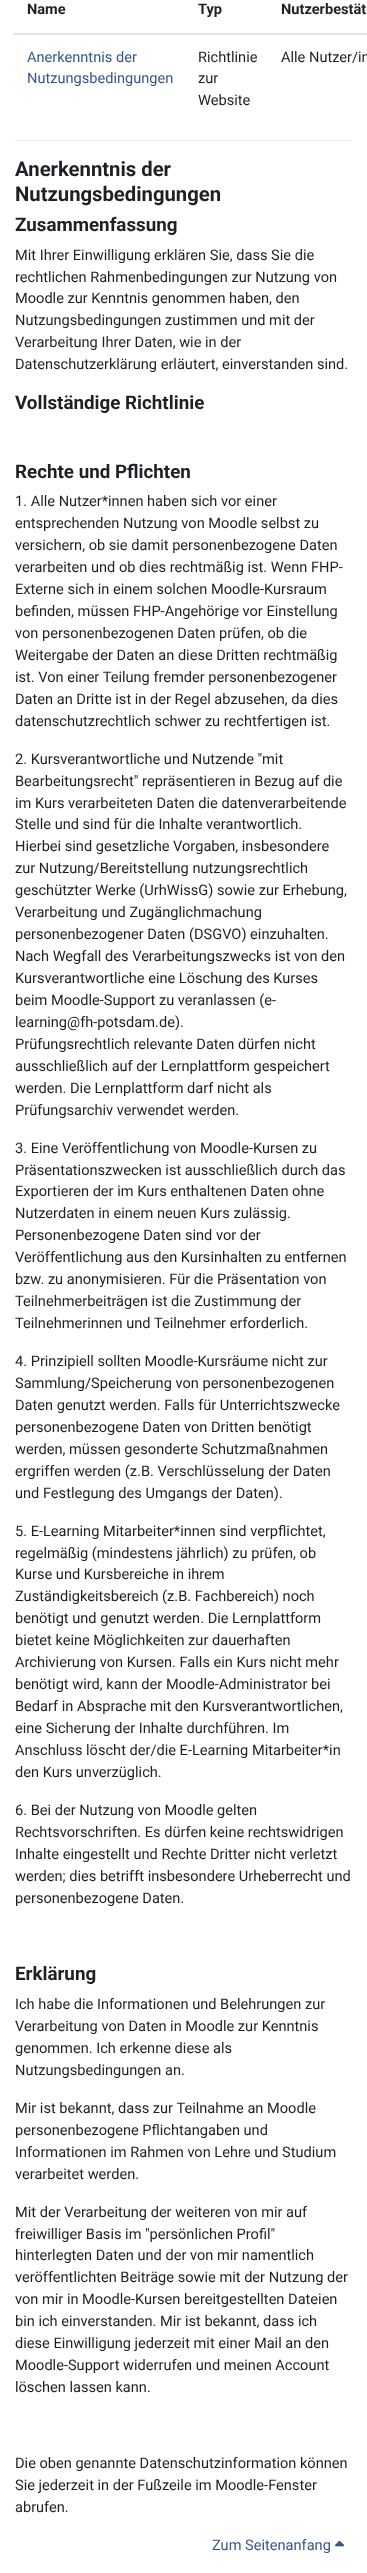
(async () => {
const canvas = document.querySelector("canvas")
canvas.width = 367
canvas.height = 2573
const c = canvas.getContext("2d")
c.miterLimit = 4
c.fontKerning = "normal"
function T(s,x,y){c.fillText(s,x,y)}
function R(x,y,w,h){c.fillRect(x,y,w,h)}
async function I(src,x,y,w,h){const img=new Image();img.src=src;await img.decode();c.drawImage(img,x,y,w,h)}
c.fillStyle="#fff"
R(0,0,367,2573)
c.font="bold 14.6px Roboto"
c.fillStyle="#1d2125"
T("Name",27,14)
T("Typ",198,14)
c.fillStyle="#dee2e6"
R(14,33,353,2)
c.fillStyle="#1d2125"
T("Nutzerbestät",281,14)
c.font="14.6px Roboto"
c.fillStyle="#35568b"
T("Anerkenntnis der",27,62)
T("Nutzungsbedingungen",27,83)
c.fillStyle="#1d2125"
T("Richtlinie",198,62)
T("zur",198,83)
T("Website",198,105)
T("Alle Nutzer/in",281,62)
c.fillStyle="#e6e6e6"
R(15,140,337,1)
c.font="bold 20.25px Roboto"
c.fillStyle="#1d2125"
T("Anerkenntnis der",15,176)
T("Nutzungsbedingungen",15,201)
c.font="bold 18.8px Roboto"
T("Zusammenfassung",15,231)
c.font="14.6px Roboto"
T("Mit Ihrer Einwilligung erklären Sie, dass Sie die",15,260)
T("rechtlichen Rahmenbedingungen zur Nutzung von",15,282)
T("Moodle zur Kenntnis genommen haben, den",15,303)
T("Nutzungsbedingungen zustimmen und mit der",15,325)
T("Verarbeitung Ihrer Daten, wie in der",15,347)
T("Datenschutzerklärung erläutert, einverstanden sind.",15,369)
c.font="bold 18.8px Roboto"
T("Vollständige Richtlinie",15,409)
T("Rechte und Pflichten",15,478)
c.font="14.6px Roboto"
T("1. Alle Nutzer*innen haben sich vor einer",15,506)
T("entsprechenden Nutzung von Moodle selbst zu",15,528)
T("versichern, ob sie damit personenbezogene Daten",15,550)
T("verarbeiten und ob dies rechtmäßig ist. Wenn FHP-",15,572)
T("Externe sich in einem solchen Moodle-Kursraum",15,594)
T("befinden, müssen FHP-Angehörige vor Einstellung",15,616)
T("von personenbezogenen Daten prüfen, ob die",15,638)
T("Weitergabe der Daten an diese Dritten rechtmäßig",15,660)
T("ist. Von einer Teilung fremder personenbezogener",15,682)
T("Daten an Dritte ist in der Regel abzusehen, da dies",15,704)
T("datenschutzrechtlich schwer zu rechtfertigen ist.",15,726)
T("2. Kursverantwortliche und Nutzende \"mit",15,764)
T("Bearbeitungsrecht\" repräsentieren in Bezug auf die",15,786)
T("im Kurs verarbeiteten Daten die datenverarbeitende",15,808)
T("Stelle und sind für die Inhalte verantwortlich.",15,829)
T("Hierbei sind gesetzliche Vorgaben, insbesondere",15,851)
T("zur Nutzung/Bereitstellung nutzungsrechtlich",15,873)
T("geschützter Werke (UrhWissG) sowie zur Erhebung,",15,895)
T("Verarbeitung und Zugänglichmachung",15,917)
T("personenbezogener Daten (DSGVO) einzuhalten.",15,939)
T("Nach Wegfall des Verarbeitungszwecks ist von den",15,961)
T("Kursverantwortliche eine Löschung des Kurses",15,983)
T("beim Moodle-Support zu veranlassen (e-",15,1005)
T("learning@fh-potsdam.de).",15,1027)
T("Prüfungsrechtlich relevante Daten dürfen nicht",15,1049)
T("ausschließlich auf der Lernplattform gespeichert",15,1071)
T("werden. Die Lernplattform darf nicht als",15,1093)
T("Prüfungsarchiv verwendet werden.",15,1115)
T("3. Eine Veröffentlichung von Moodle-Kursen zu",15,1153)
T("Präsentationszwecken ist ausschließlich durch das",15,1175)
T("Exportieren der im Kurs enthaltenen Daten ohne",15,1196)
T("Nutzerdaten in einem neuen Kurs zulässig.",15,1218)
T("Personenbezogene Daten sind vor der",15,1240)
T("Veröffentlichung aus den Kursinhalten zu entfernen",15,1262)
T("bzw. zu anonymisieren. Für die Präsentation von",15,1284)
T("Teilnehmerbeiträgen ist die Zustimmung der",15,1306)
T("Teilnehmerinnen und Teilnehmer erforderlich.",15,1328)
T("4. Prinzipiell sollten Moodle-Kursräume nicht zur",15,1366)
T("Sammlung/Speicherung von personenbezogenen",15,1388)
T("Daten genutzt werden. Falls für Unterrichtszwecke",15,1410)
T("personenbezogene Daten von Dritten benötigt",15,1432)
T("werden, müssen gesonderte Schutzmaßnahmen",15,1454)
T("ergriffen werden (z.B. Verschlüsselung der Daten",15,1476)
T("und Festlegung des Umgangs der Daten).",15,1498)
T("5. E-Learning Mitarbeiter*innen sind verpflichtet,",15,1536)
T("regelmäßig (mindestens jährlich) zu prüfen, ob",15,1558)
T("Kurse und Kursbereiche in ihrem",15,1579)
T("Zuständigkeitsbereich (z.B. Fachbereich) noch",15,1601)
T("benötigt und genutzt werden. Die Lernplattform",15,1623)
T("bietet keine Möglichkeiten zur dauerhaften",15,1645)
T("Archivierung von Kursen. Falls ein Kurs nicht mehr",15,1667)
T("benötigt wird, kann der Moodle-Administrator bei",15,1689)
T("Bedarf in Absprache mit den Kursverantwortlichen,",15,1711)
T("eine Sicherung der Inhalte durchführen. Im",15,1733)
T("Anschluss löscht der/die E-Learning Mitarbeiter*in",15,1755)
T("den Kurs unverzüglich.",15,1777)
T("6. Bei der Nutzung von Moodle gelten",15,1815)
T("Rechtsvorschriften. Es dürfen keine rechtswidrigen",15,1837)
T("Inhalte eingestellt und Rechte Dritter nicht verletzt",15,1859)
T("werden; dies betrifft insbesondere Urheberrecht und",15,1881)
T("personenbezogene Daten.",15,1903)
c.font="bold 18.8px Roboto"
T("Erklärung",15,1980)
c.font="14.6px Roboto"
T("Ich habe die Informationen und Belehrungen zur",15,2009)
T("Verarbeitung von Daten in Moodle zur Kenntnis",15,2031)
T("genommen. Ich erkenne diese als",15,2053)
T("Nutzungsbedingungen an.",15,2075)
T("Mir ist bekannt, dass zur Teilnahme an Moodle",15,2113)
T("personenbezogene Pflichtangaben und",15,2135)
T("Informationen im Rahmen von Lehre und Studium",15,2157)
T("verarbeitet werden.",15,2179)
T("Mit der Verarbeitung der weiteren von mir auf",15,2217)
T("freiwilliger Basis im \"persönlichen Profil\"",15,2239)
T("hinterlegten Daten und der von mir namentlich",15,2260)
T("veröffentlichten Beiträge sowie mit der Nutzung der",15,2282)
T("von mir in Moodle-Kursen bereitgestellten Dateien",15,2304)
T("bin ich einverstanden. Mir ist bekannt, dass ich",15,2326)
T("diese Einwilligung jederzeit mit einer Mail an den",15,2348)
T("Moodle-Support widerrufen und meinen Account",15,2370)
T("löschen lassen kann.",15,2392)
T("Die oben genannte Datenschutzinformation können",15,2468)
T("Sie jederzeit in der Fußzeile im Moodle-Fenster",15,2490)
T("abrufen.",15,2512)
c.fillStyle="#35568b"
T("Zum Seitenanfang",212,2550)
await I("1.png",335,2540,10,7)
})()
